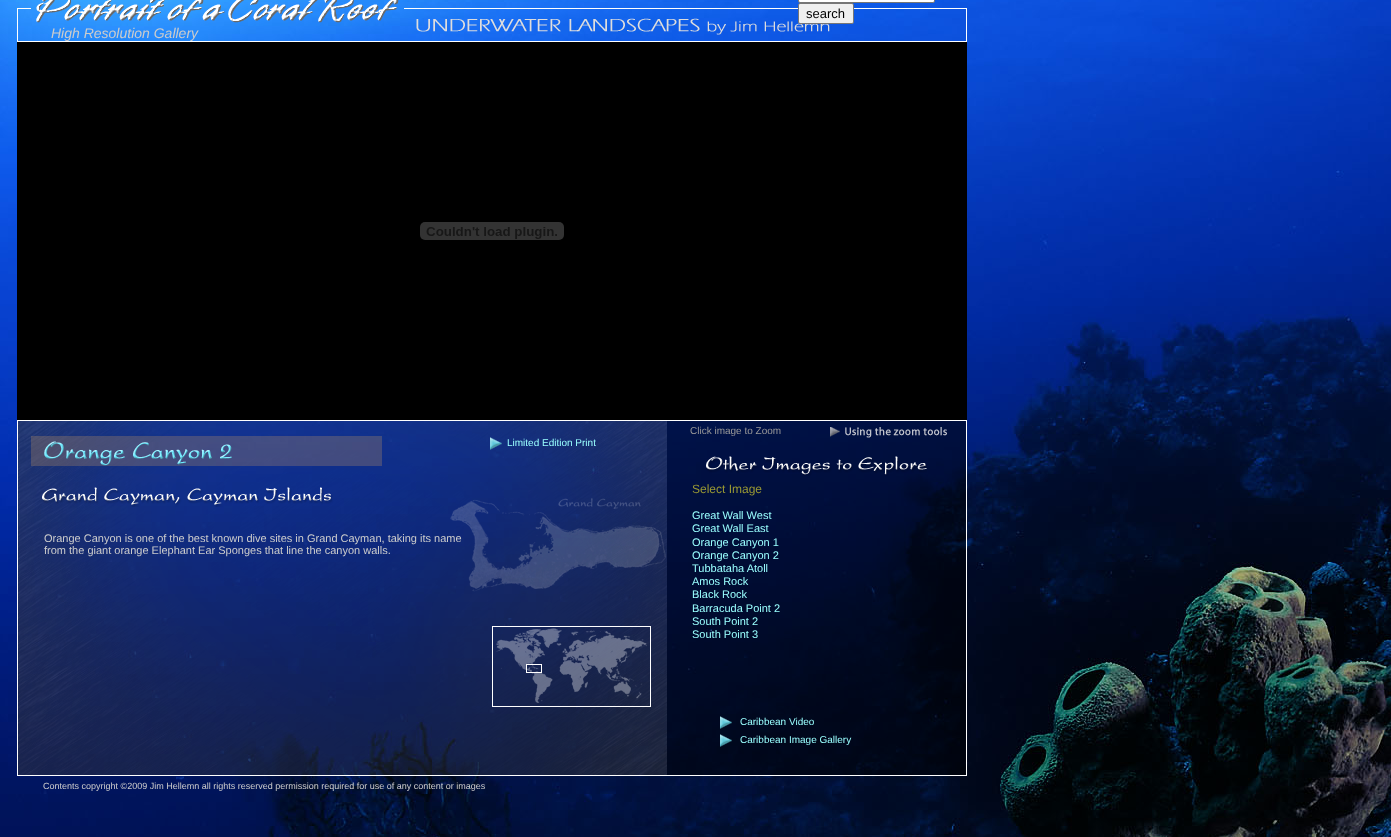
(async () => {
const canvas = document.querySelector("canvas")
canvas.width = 1391
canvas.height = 837
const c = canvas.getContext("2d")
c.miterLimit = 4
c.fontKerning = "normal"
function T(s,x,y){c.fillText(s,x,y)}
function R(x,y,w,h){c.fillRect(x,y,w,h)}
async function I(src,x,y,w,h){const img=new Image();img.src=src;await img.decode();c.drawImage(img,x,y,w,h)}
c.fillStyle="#fff"
R(0,0,1391,837)
await I("1.png",0,0,1391,837)
c.font="italic 14px Liberation Sans"
c.fillStyle="#ccc"
T("High Resolution Gallery",51,38)
await I("2.png",17,0,950,42)
c.fillStyle="#fff"
c.beginPath()
c.roundRect(798.5,-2.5,136,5,1.5)
c.fill()
c.strokeStyle="#767676"
c.stroke()
c.fillStyle="#efefef"
c.beginPath()
c.roundRect(798.5,3.5,55,20,1.5)
c.fill()
c.stroke()
c.font="13px Liberation Sans"
c.fillStyle="#000"
T("search",806,18)
R(17,42,950,378)
await I("3.png",420,222,144,18)
await I("4.png",17,420,950,356)
c.font="10px Liberation Sans"
c.fillStyle="#999"
T("Click image to Zoom",690,434)
await I("5.png",830,427,117,11)
await I("6.png",31,436,351,30)
await I("7.png",490,437,12,13)
c.fillStyle="#9ff"
T("Limited Edition Print",507,446)
await I("8.png",706,456,221,20)
await I("9.png",42,487,291,20)
await I("10.png",450,498,216,94)
c.font="12px Liberation Sans"
c.fillStyle="#993"
T("Select Image",692,493)
c.font="11px Liberation Sans"
c.fillStyle="#9ff"
T("Great Wall West",692,519)
T("Great Wall East",692,532)
T("Orange Canyon 1",692,546)
T("Orange Canyon 2",692,559)
T("Tubbataha Atoll",692,572)
T("Amos Rock",692,585)
T("Black Rock",692,598)
T("Barracuda Point 2",692,612)
T("South Point 2",692,625)
T("South Point 3",692,638)
c.fillStyle="#ccc"
T("Orange Canyon is one of the best known dive sites in Grand Cayman, taking its name",44,542)
T("from the giant orange Elephant Ear Sponges that line the canyon walls.",44,554)
await I("11.png",492,626,159,81)
await I("12.png",720,716,12,13)
c.font="10px Liberation Sans"
c.fillStyle="#9ff"
T("Caribbean Video",740,725)
await I("13.png",720,734,12,13)
T("Caribbean Image Gallery",740,743)
c.font="9px Liberation Sans"
c.fillStyle="#ccc"
T("Contents copyright ©2009 Jim Hellemn all rights reserved permission required for use of any content or images",43,789)
})()
